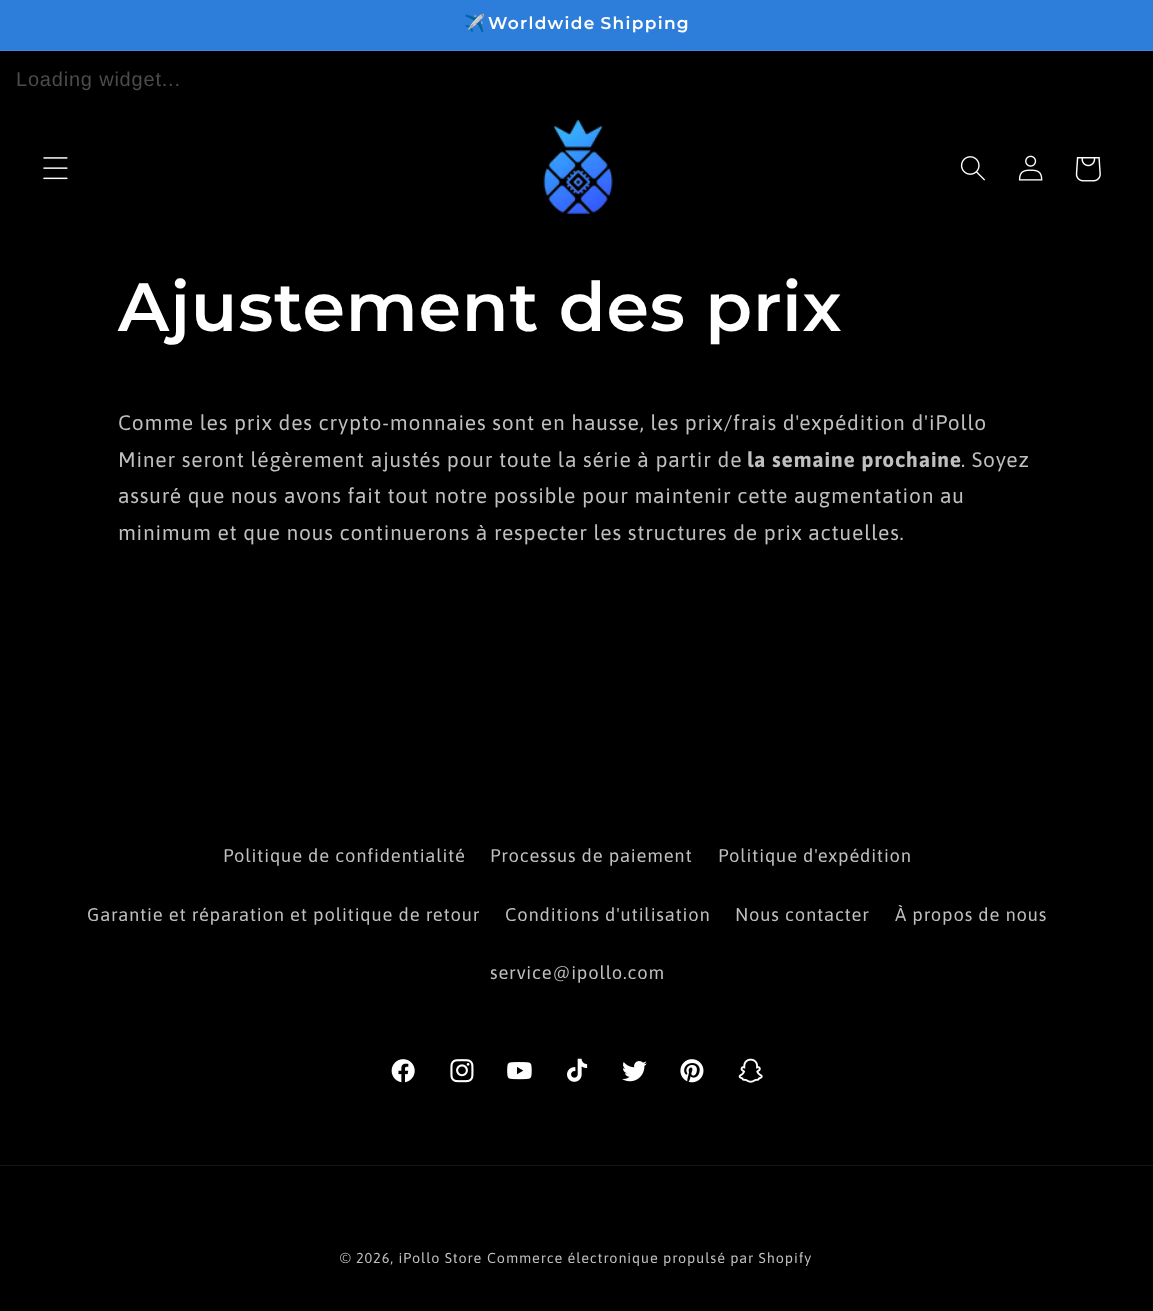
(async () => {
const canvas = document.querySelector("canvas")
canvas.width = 1153
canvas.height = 1311
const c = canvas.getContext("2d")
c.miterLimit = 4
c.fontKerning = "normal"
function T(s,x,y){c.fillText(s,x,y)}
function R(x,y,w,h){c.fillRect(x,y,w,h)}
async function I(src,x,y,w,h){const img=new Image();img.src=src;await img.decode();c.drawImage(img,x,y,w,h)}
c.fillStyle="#000"
R(0,0,1153,1311)
c.fillStyle="#2d7ddb"
R(0,0,1153,50)
c.fillStyle="#3e87de"
R(0,50,1153,1)
c.letterSpacing="1.3px"
c.font="bold 17px Noto Color Emoji"
c.fillStyle="#fff"
T("✈️",464,29)
c.wordSpacing="-1px"
c.font="600 17px Montserrat"
T("Worldwide Shipping",488,29)
c.letterSpacing="0.8px"
c.wordSpacing="0px"
c.font="20px Liberation Sans"
c.fillStyle="#4c4c4c"
T("Loading widget...",16,86)
await I("1.png",43,157,25,23)
await I("2.png",543,119,70,96)
await I("3.png",960,156,25,25)
await I("4.png",1018,155,25,26)
await I("5.png",1075,157,26,25)
c.font="600 68.25px Montserrat"
c.fillStyle="#fff"
T("Ajustement des prix",118,331)
c.font="21px Asap"
c.fillStyle="#bfbfbf"
T("Comme les prix des crypto-monnaies sont en hausse, les prix/frais d'expédition d'iPollo",118,430)
T("Miner seront légèrement ajustés pour toute la série à partir de",118,467)
c.font="bold 21px Asap"
T("la semaine prochaine",747,467)
c.font="21px Asap"
T(". Soyez",961,467)
T("assuré que nous avons fait tout notre possible pour maintenir cette augmentation au",118,503)
T("minimum et que nous continuerons à respecter les structures de prix actuelles.",118,540)
c.font="18.4px Asap"
T("Politique de confidentialité",223,862)
T("Processus de paiement",490,862)
T("Politique d'expédition",718,862)
T("Garantie et réparation et politique de retour",87,921)
T("Conditions d'utilisation",505,921)
T("Nous contacter",735,921)
T("À propos de nous",895,921)
T("service@ipollo.com",490,979)
await I("6.png",391,1059,24,24)
await I("7.png",450,1059,24,24)
await I("8.png",507,1062,25,18)
await I("9.png",567,1058,21,24)
await I("10.png",622,1061,25,21)
await I("11.png",680,1059,24,24)
await I("12.png",738,1058,25,25)
c.fillStyle="#141414"
R(0,1165,1153,1)
c.letterSpacing="0.9px"
c.font="14.4px Asap"
c.fillStyle="#bfbfbf"
T("© 2026, iPollo Store",340,1263)
T("Commerce électronique propulsé par Shopify",487,1263)
})()
